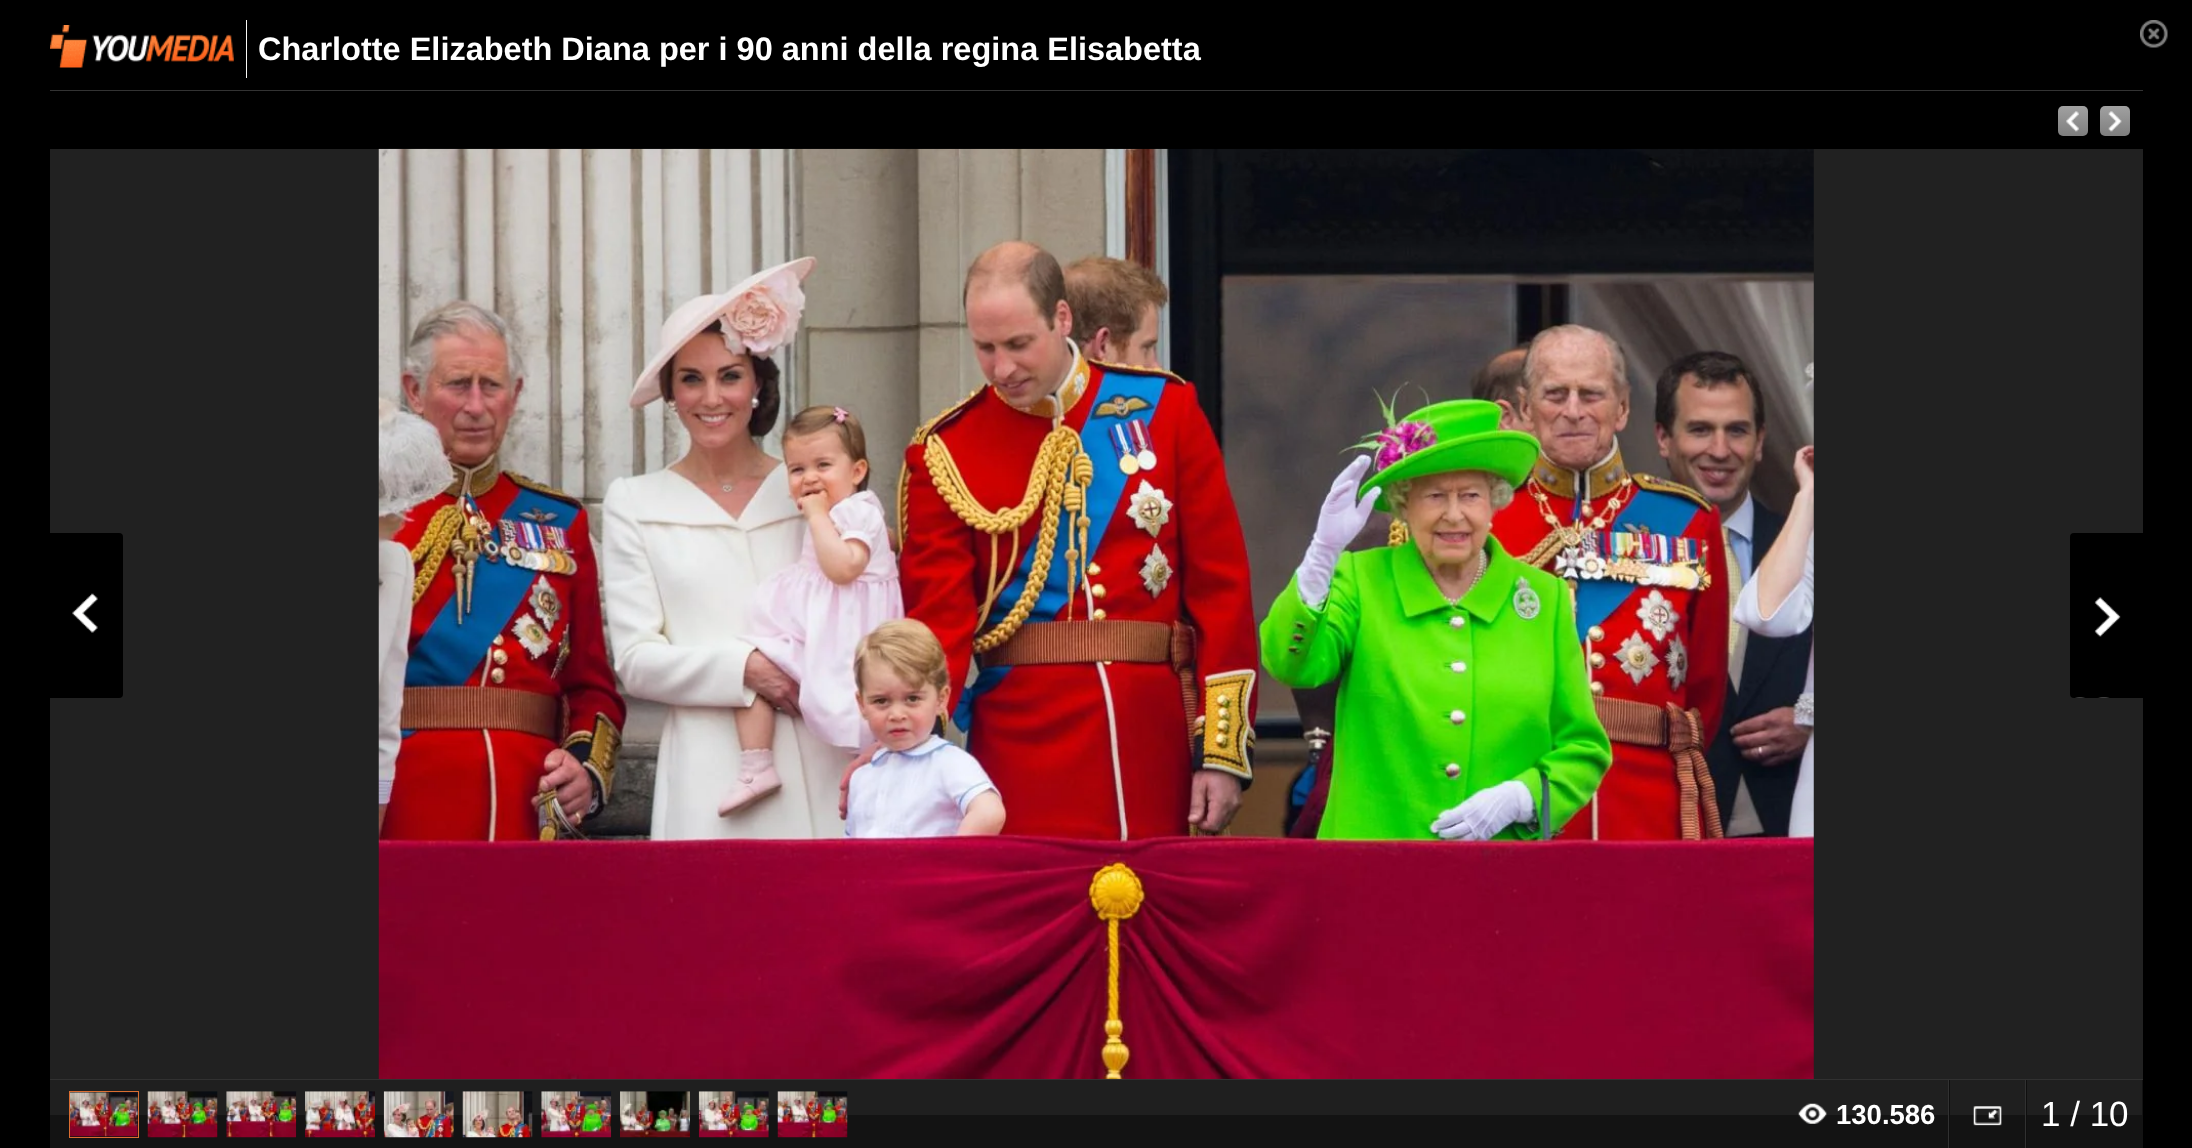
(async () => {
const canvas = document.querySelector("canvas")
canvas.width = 2192
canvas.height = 1148
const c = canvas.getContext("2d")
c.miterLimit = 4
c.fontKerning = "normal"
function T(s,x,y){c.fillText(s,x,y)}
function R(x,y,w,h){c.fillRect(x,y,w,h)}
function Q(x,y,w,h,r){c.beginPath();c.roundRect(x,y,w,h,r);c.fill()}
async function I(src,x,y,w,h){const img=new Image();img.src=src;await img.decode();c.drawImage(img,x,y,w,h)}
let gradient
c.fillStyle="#000"
R(0,0,2192,1148)
c.fillStyle="#333"
R(50,90,2093,1)
await I("1.png",50,25,184,43)
c.fillStyle="#f7f7f5"
R(246,20,1,58)
c.font="bold 32.5px Liberation Sans"
c.fillStyle="#fff"
T("Charlotte Elizabeth Diana per i 90 anni della regina Elisabetta",258,60)
await I("2.png",2140,20,28,28)
gradient = c.createLinearGradient(2073,106,2073,136)
gradient.addColorStop(0,"#a1a1a1")
gradient.addColorStop(1,"#7e7e7e")
c.fillStyle = gradient
Q(2058,106,30,30,5)
await I("3.png",2066,111,13,21)
gradient = c.createLinearGradient(2115,106,2115,136)
gradient.addColorStop(0,"#a1a1a1")
gradient.addColorStop(1,"#7e7e7e")
c.fillStyle = gradient
Q(2100,106,30,30,5)
await I("4.png",2108,111,14,21)
c.fillStyle="#212121"
R(50,149,2093,930)
c.fillStyle="#000"
c.beginPath()
c.roundRect(50,533,73,165,[0,4,4,0])
c.fill()
await I("5.png",72,593,26,40)
await I("6.png",378,148,1436,931)
c.beginPath()
c.roundRect(2070,533,73,165,[4,0,0,4])
c.fill()
await I("7.png",2075,597,46,101)
c.fillStyle="#131313"
R(50,1115,1735,33)
c.fillStyle="#1f1f1f"
R(50,1080,1735,35)
c.fillStyle="#313131"
R(50,1079,2093,1)
c.strokeStyle="#da6d31"
c.strokeRect(69.5,1091.5,69,46)
await I("8.png",70,1092,68,45)
await I("9.png",147,1091,71,47)
await I("10.png",226,1091,71,47)
await I("11.png",305,1091,70,47)
await I("12.png",383,1091,71,47)
await I("13.png",462,1091,71,47)
await I("14.png",541,1091,71,47)
await I("15.png",620,1091,70,47)
await I("16.png",698,1091,71,47)
await I("17.png",777,1091,71,47)
c.fillStyle="#131313"
R(1785,1080,358,68)
c.fillStyle="#1f1f1f"
R(1785,1080,357,35)
c.fillStyle="#313131"
R(1948,1080,1,68)
await I("18.png",1798,1103,29,21)
c.font="bold 27.5px Liberation Sans"
c.fillStyle="#fff"
T("130.586",1836,1124)
c.fillStyle="#313131"
R(2025,1080,1,68)
c.fillStyle="#0f0f0f"
R(1949,1080,1,68)
await I("19.png",1973,1106,29,20)
R(2026,1080,1,68)
c.font="35px Liberation Sans"
c.fillStyle="#fff"
T("1 / 10",2041,1126)
})()
